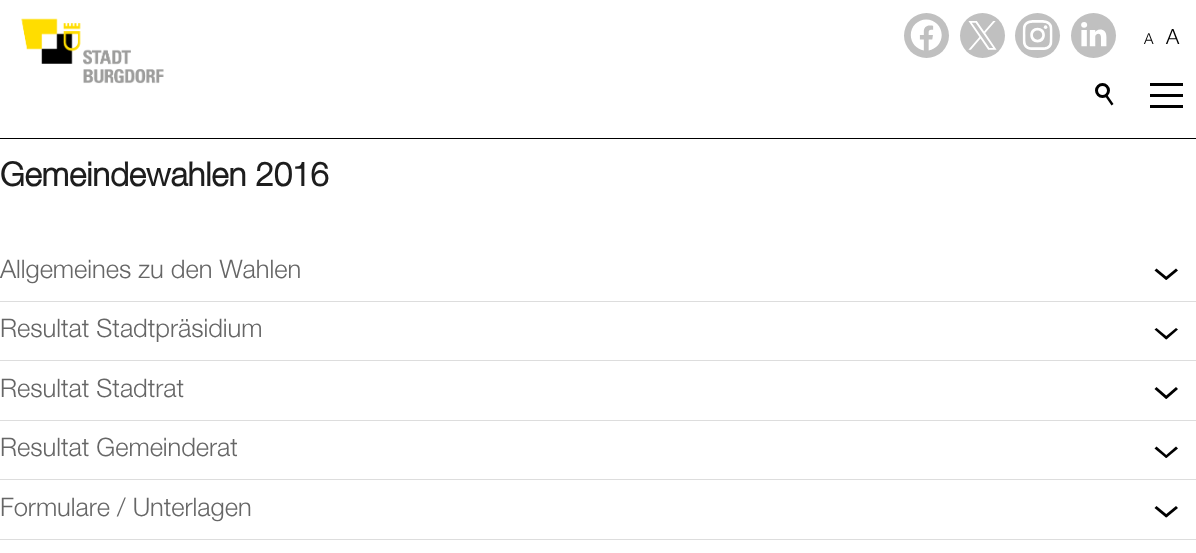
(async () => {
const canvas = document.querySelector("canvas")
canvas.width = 1196
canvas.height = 553
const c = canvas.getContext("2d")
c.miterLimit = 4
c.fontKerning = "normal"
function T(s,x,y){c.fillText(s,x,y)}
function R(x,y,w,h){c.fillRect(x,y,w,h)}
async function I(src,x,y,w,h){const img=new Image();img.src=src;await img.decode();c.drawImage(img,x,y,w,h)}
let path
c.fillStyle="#fff"
R(0,0,1196,553)
await I("1.png",21,18,143,66)
c.fillStyle="#c0c0c0"
c.beginPath()
c.arc(926.5,35.5,22.5,0,7)
c.fill()
await I("2.png",910,19,32,32)
c.beginPath()
c.arc(982.5,35.5,22.5,0,7)
c.fill()
await I("3.png",968,21,29,29)
c.beginPath()
c.arc(1037.5,35.5,22.5,0,7)
c.fill()
await I("4.png",1022,20,31,30)
c.beginPath()
c.arc(1093.5,35.5,22.5,0,7)
c.fill()
await I("5.png",1081,22,26,25)
c.font="300 15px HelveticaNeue"
c.fillStyle="#000"
T("A",1144,44)
c.font="300 21px HelveticaNeue"
T("A",1166,44)
R(0,138,1196,1)
c.beginPath()
c.arc(1102.5,90.5,6,0,7)
c.strokeStyle="#000"
c.lineWidth=3
c.stroke()
path = new Path2D("M1107 94.5l6.5 9.5l-2 1.5l-6.5-9.5z")
c.fill(path)
R(1150,83,33,3)
R(1150,94,33,3)
R(1150,105,33,3)
c.font="bold 33px HelveticaNeue"
c.fillStyle="#1d1d1d"
T("Gemeindewahlen 2016",0,186)
c.fillStyle="#ddd"
R(0,301,1196,1)
c.font="300 25.5px HelveticaNeue"
c.fillStyle="#666"
T("Allgemeines zu den Wahlen",0,278)
c.fillStyle="#000"
path = new Path2D("M1156.5 268.5l11.5 9.5l-2 2l-11.5-9.5z")
c.fill(path)
path = new Path2D("M1164.5 278l11.5-9.5l2 2l-11.5 9.5z")
c.fill(path)
c.fillStyle="#ddd"
R(0,360,1196,1)
c.fillStyle="#666"
T("Resultat Stadtpräsidium",0,337)
c.fillStyle="#000"
path = new Path2D("M1156.5 328l11.5 9.5l-2 2l-11.5-10z")
c.fill(path)
path = new Path2D("M1164.5 337.5l11.5-9.5l2 1.5l-11.5 10z")
c.fill(path)
c.fillStyle="#ddd"
R(0,420,1196,1)
c.fillStyle="#666"
T("Resultat Stadtrat",0,397)
c.fillStyle="#000"
path = new Path2D("M1156.5 387l11.5 10l-2 2l-11.5-10z")
c.fill(path)
path = new Path2D("M1164.5 397l11.5-10l2 2l-11.5 10z")
c.fill(path)
c.fillStyle="#ddd"
R(0,479,1196,1)
c.fillStyle="#666"
T("Resultat Gemeinderat",0,456)
c.fillStyle="#000"
path = new Path2D("M1156.5 446.5l11.5 10l-2 1.5l-11.5-9.5z")
c.fill(path)
path = new Path2D("M1164.5 456.5l11.5-10l2 2l-11.5 9.5z")
c.fill(path)
c.fillStyle="#ddd"
R(0,539,1196,1)
c.fillStyle="#666"
T("Formulare / Unterlagen",0,516)
c.fillStyle="#000"
path = new Path2D("M1156.5 506l11.5 9.5l-2 2l-11.5-9.5z")
c.fill(path)
path = new Path2D("M1164.5 515.5l11.5-9.5l2 2l-11.5 9.5z")
c.fill(path)
})()
